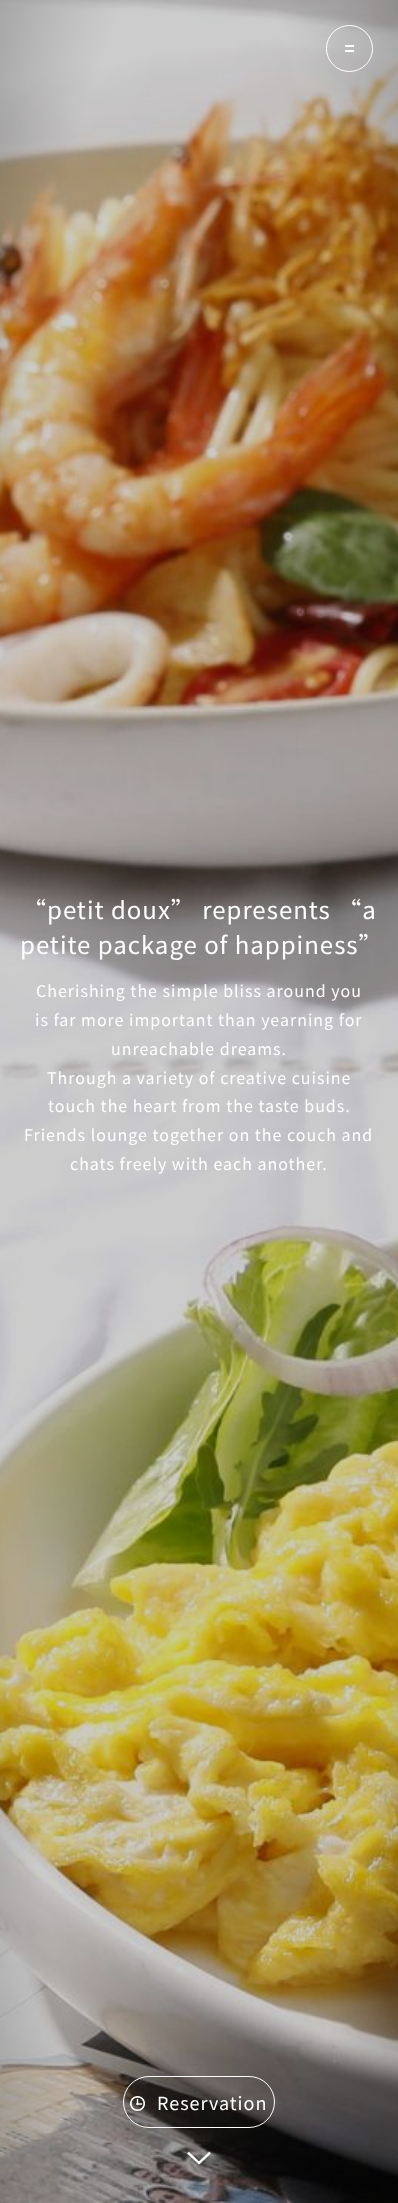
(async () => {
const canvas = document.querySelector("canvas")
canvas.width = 398
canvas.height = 2203
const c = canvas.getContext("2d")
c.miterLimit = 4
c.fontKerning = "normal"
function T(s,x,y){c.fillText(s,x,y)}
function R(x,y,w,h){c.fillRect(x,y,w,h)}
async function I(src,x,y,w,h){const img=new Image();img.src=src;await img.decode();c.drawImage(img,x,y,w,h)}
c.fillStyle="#fff"
R(0,0,398,2203)
await I("1.png",0,0,398,2203)
c.beginPath()
c.arc(349.5,48.5,23,0,7)
c.strokeStyle="#fff"
c.stroke()
R(345,45,9,2)
R(345,50,9,2)
c.letterSpacing="1px"
c.font="100 24px Noto Sans TC"
T("“petit doux” represents “a",22,919)
T("petite package of happiness”",20,954)
c.font="100 16px Noto Sans TC"
T("Cherishing the simple bliss around you",36,997)
T("is far more important than yearning for",35,1026)
T("unreachable dreams.",111,1055)
T("Through a variety of creative cuisine",47,1084)
T("touch the heart from the taste buds.",48,1112)
T("Friends lounge together on the couch and",24,1141)
T("chats freely with each another.",70,1170)
await I("2.png",187,2151,25,16)
c.beginPath()
c.roundRect(123.5,2076.5,151,51,25.5)
c.stroke()
await I("3.png",130,2096,15,15)
c.font="100 18px Noto Sans TC"
T("Reservation",157,2110)
})()
